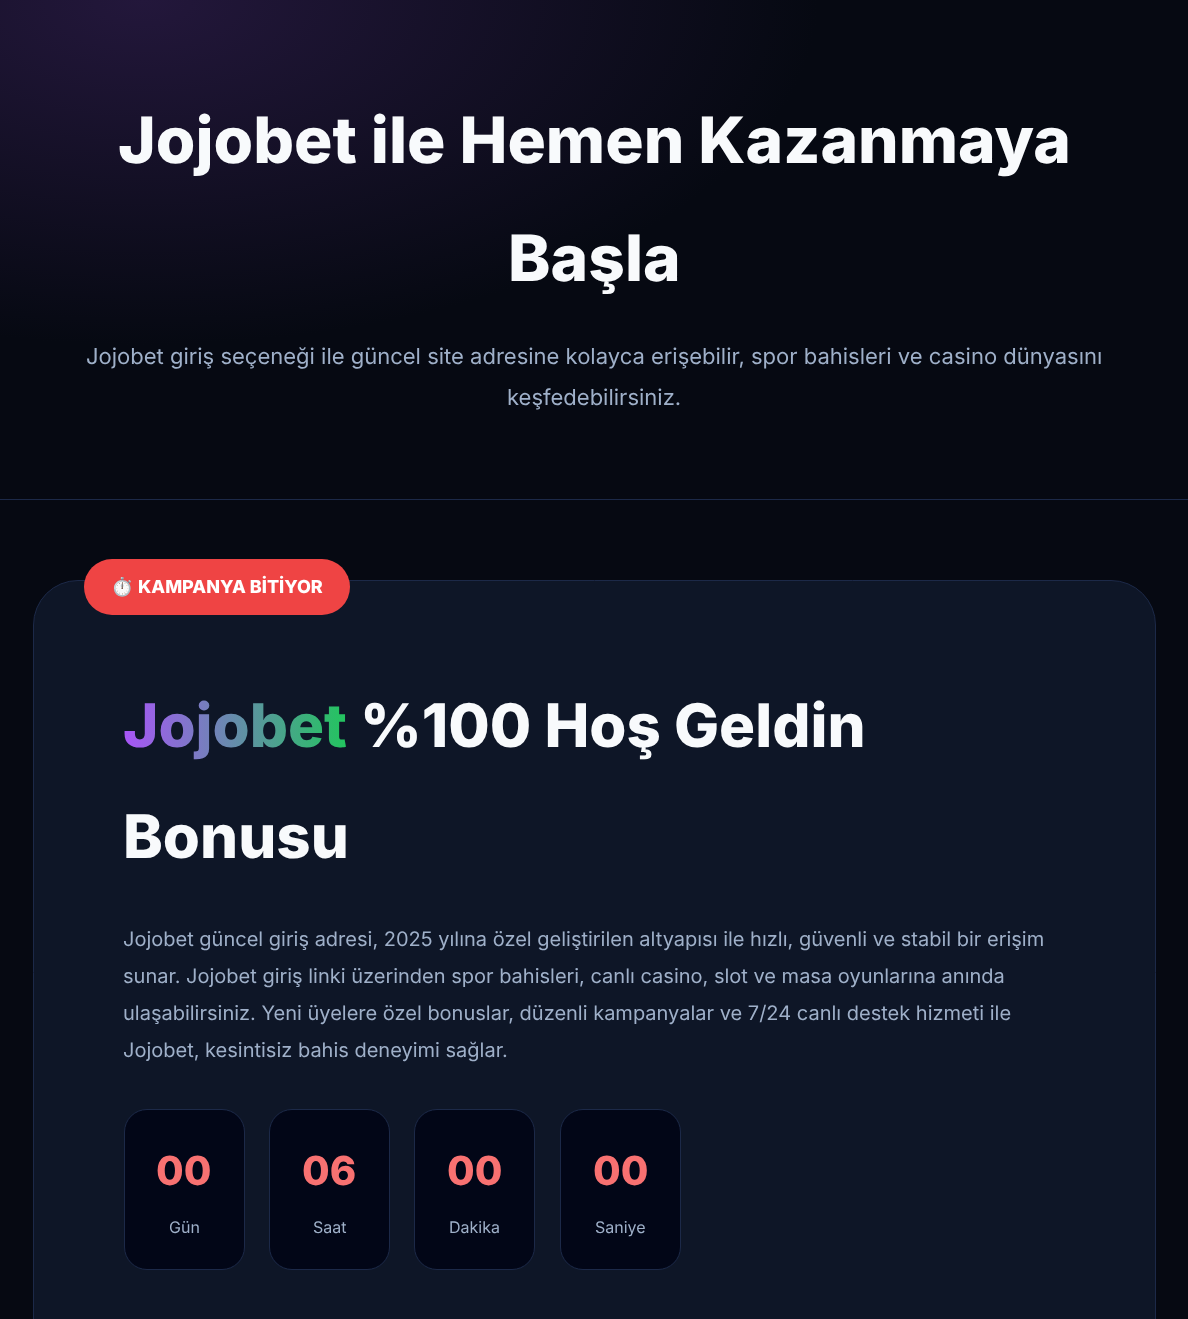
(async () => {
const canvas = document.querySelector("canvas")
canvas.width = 1188
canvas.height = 1319
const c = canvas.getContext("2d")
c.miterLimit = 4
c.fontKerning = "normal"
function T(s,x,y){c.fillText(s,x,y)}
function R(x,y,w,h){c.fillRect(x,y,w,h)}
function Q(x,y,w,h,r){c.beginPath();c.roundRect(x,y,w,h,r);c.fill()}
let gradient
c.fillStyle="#fff"
R(0,0,1188,1319)
gradient = c.createRadialGradient(143,0,0,143,0,1125)
gradient.addColorStop(0,"#23173b")
gradient.addColorStop(.6,"#060912")
c.fillStyle = gradient
c.beginPath()
c.rect(0,0,1188,1319)
c.save()
c.clip()
c.scale(1,575 / 1125)
c.fillRect(0,0,1188,2581)
c.restore()
c.fillStyle="#1c2948"
R(0,499,1188,1)
c.font="800 64px Inter"
c.fillStyle="#f8fafc"
T("Jojobet ile Hemen Kazanmaya",118,163)
T("Başla",508,281)
c.font="22px Inter"
c.fillStyle="#9fb0c9"
T("Jojobet giriş seçeneği ile güncel site adresine kolayca erişebilir, spor bahisleri ve casino dünyasını",86,364)
T("keşfedebilirsiniz.",507,405)
c.fillStyle="#0e1627"
c.beginPath()
c.roundRect(33.5,580.5,1122,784,44.5)
c.fill()
c.strokeStyle="#1c2948"
c.stroke()
c.fillStyle="#ef4444"
Q(84,559,266,56,28)
c.font="bold 18px Noto Color Emoji"
c.fillStyle="#fff"
T("⏱️",111,593)
c.font="800 18px Inter"
T("KAMPANYA BİTİYOR",138,593)
c.font="800 60px Inter"
gradient = c.createLinearGradient(123,725,347,725)
gradient.addColorStop(0,"#a855f7")
gradient.addColorStop(1,"#22c55e")
c.fillStyle = gradient
T("Jojobet",123,747)
c.fillStyle="#f8fafc"
T("%100 Hoş Geldin",360,747)
T("Bonusu",123,858)
c.font="20px Inter"
c.fillStyle="#9fb0c9"
T("Jojobet güncel giriş adresi, 2025 yılına özel geliştirilen altyapısı ile hızlı, güvenli ve stabil bir erişim",123,946)
T("sunar. Jojobet giriş linki üzerinden spor bahisleri, canlı casino, slot ve masa oyunlarına anında",123,983)
T("ulaşabilirsiniz. Yeni üyelere özel bonuslar, düzenli kampanyalar ve 7/24 canlı destek hizmeti ile",123,1020)
T("Jojobet, kesintisiz bahis deneyimi sağlar.",123,1057)
c.fillStyle="#020617"
c.beginPath()
c.roundRect(124.5,1109.5,120,160,22.5)
c.fill()
c.stroke()
c.font="800 40px Inter"
c.fillStyle="#f87171"
T("00",156,1185)
c.font="16px Inter"
c.fillStyle="#9fb0c9"
T("Gün",169,1233)
c.fillStyle="#020617"
c.beginPath()
c.roundRect(269.5,1109.5,120,160,22.5)
c.fill()
c.stroke()
c.font="800 40px Inter"
c.fillStyle="#f87171"
T("06",302,1185)
c.font="16px Inter"
c.fillStyle="#9fb0c9"
T("Saat",313,1233)
c.fillStyle="#020617"
c.beginPath()
c.roundRect(414.5,1109.5,120,160,22.5)
c.fill()
c.stroke()
c.font="800 40px Inter"
c.fillStyle="#f87171"
T("00",447,1185)
c.font="16px Inter"
c.fillStyle="#9fb0c9"
T("Dakika",449,1233)
c.fillStyle="#020617"
c.beginPath()
c.roundRect(560.5,1109.5,120,160,22.5)
c.fill()
c.stroke()
c.font="800 40px Inter"
c.fillStyle="#f87171"
T("00",593,1185)
c.font="16px Inter"
c.fillStyle="#9fb0c9"
T("Saniye",595,1233)
})()
